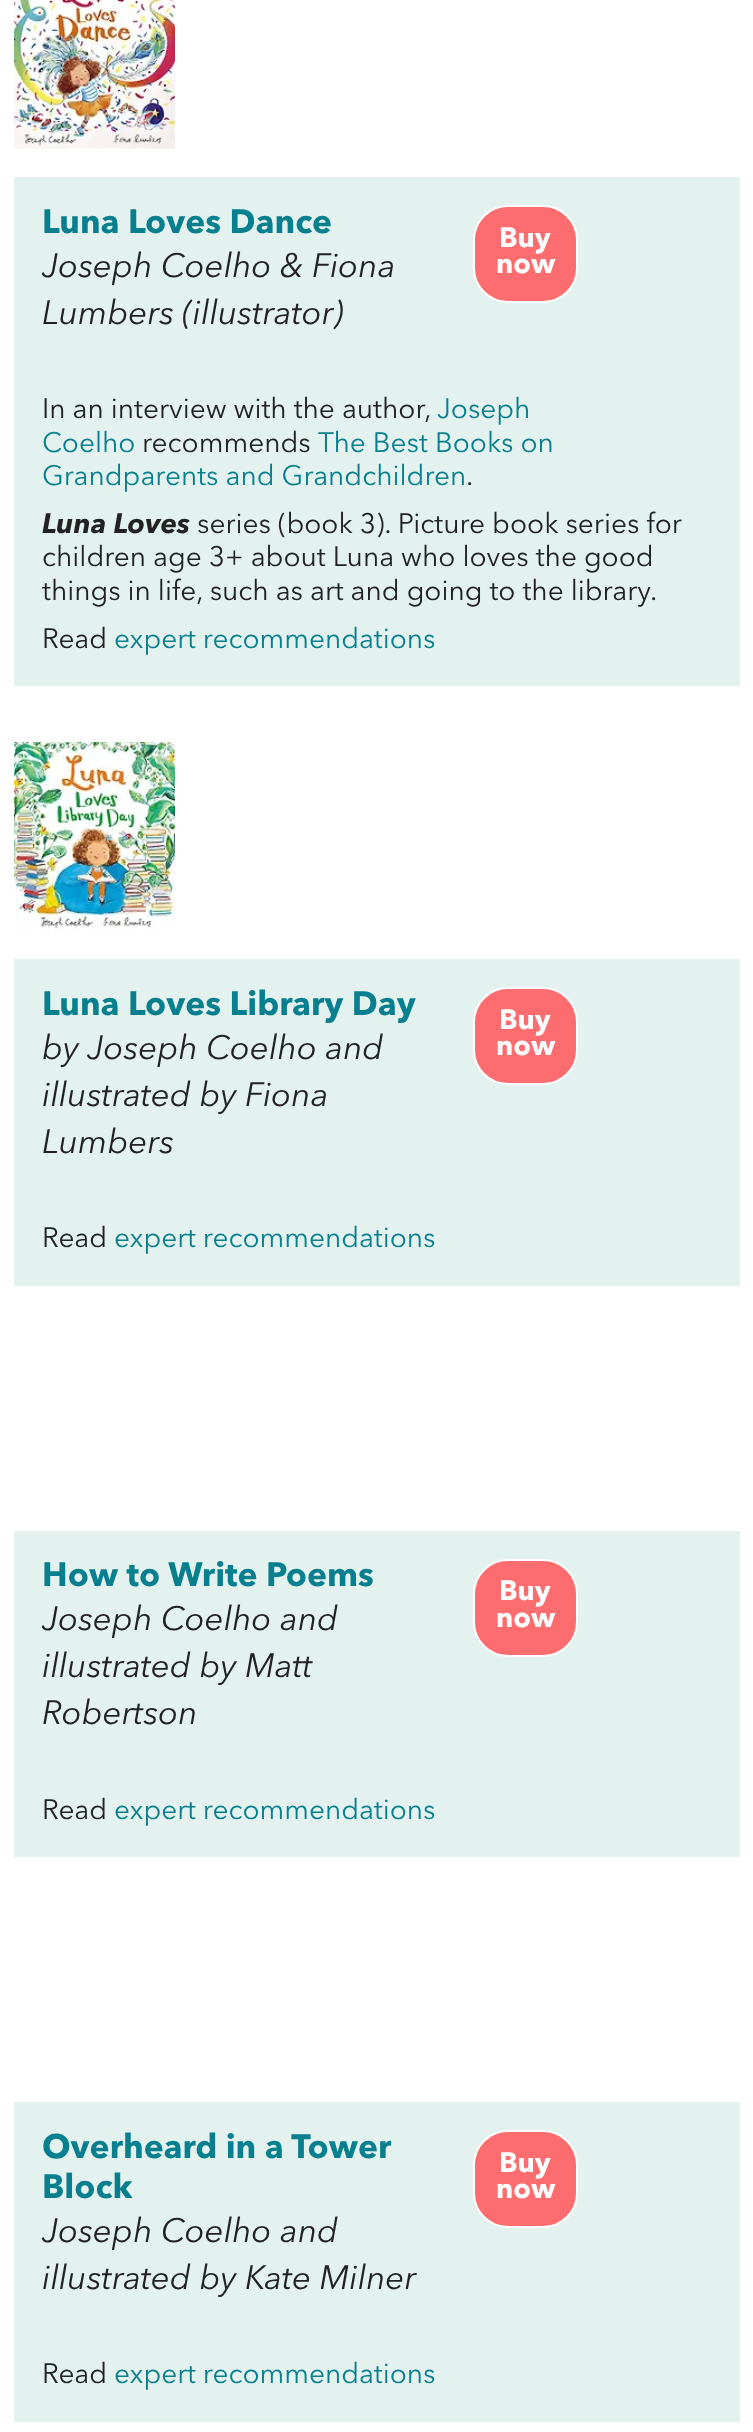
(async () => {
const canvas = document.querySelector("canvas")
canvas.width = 753
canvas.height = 2432
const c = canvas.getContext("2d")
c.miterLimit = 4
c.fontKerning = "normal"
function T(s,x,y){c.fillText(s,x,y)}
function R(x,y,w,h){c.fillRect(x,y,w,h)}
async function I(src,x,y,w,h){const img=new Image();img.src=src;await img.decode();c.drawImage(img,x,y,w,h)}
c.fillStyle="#fff"
R(0,0,753,2432)
await I("1.png",14,0,161,149)
c.fillStyle="#e3f2ef"
R(14,177,726,509)
c.font="bold 33.6px Avenir Next"
c.fillStyle="#087f8e"
T("Luna Loves Dance",42,233)
c.font="italic 33.6px Avenir Next"
c.fillStyle="#222"
T("Joseph Coelho & Fiona",42,277)
T("Lumbers (illustrator)",42,324)
c.font="28px Avenir Next"
T("In an interview with the author,",42,418)
c.fillStyle="#087f8e"
T("Joseph",437,418)
T("Coelho",42,452)
c.fillStyle="#222"
T("recommends",142,452)
c.fillStyle="#087f8e"
T("The Best Books on",318,452)
T("Grandparents and Grandchildren",42,485)
c.fillStyle="#222"
T(".",466,485)
c.font="italic bold 28px Avenir Next"
T("Luna Loves",42,533)
c.font="28px Avenir Next"
T("series (book 3). Picture book series for",197,533)
T("children age 3+ about Luna who loves the good",42,566)
T("things in life, such as art and going to the library.",42,600)
T("Read",42,648)
c.fillStyle="#087f8e"
T("expert recommendations",114,648)
c.fillStyle="#fd6d6f"
c.beginPath()
c.roundRect(474,206,103,96,34)
c.fill()
c.strokeStyle="#fff"
c.lineWidth=2
c.stroke()
c.font="bold 28px Avenir Next"
c.fillStyle="#fff"
T("Buy",499,247)
T("now",496,273)
await I("2.png",14,742,161,188)
c.fillStyle="#e3f2ef"
R(14,959,726,327)
c.font="bold 33.6px Avenir Next"
c.fillStyle="#087f8e"
T("Luna Loves Library Day",42,1015)
c.font="italic 33.6px Avenir Next"
c.fillStyle="#222"
T("by Joseph Coelho and",42,1059)
T("illustrated by Fiona",42,1106)
T("Lumbers",42,1153)
c.font="28px Avenir Next"
T("Read",42,1247)
c.fillStyle="#087f8e"
T("expert recommendations",114,1247)
c.fillStyle="#fd6d6f"
c.beginPath()
c.roundRect(474,988,103,96,34)
c.fill()
c.stroke()
c.font="bold 28px Avenir Next"
c.fillStyle="#fff"
T("Buy",499,1029)
T("now",496,1055)
c.fillStyle="#e3f2ef"
R(14,1531,726,326)
c.font="bold 33.6px Avenir Next"
c.fillStyle="#087f8e"
T("How to Write Poems",42,1586)
c.font="italic 33.6px Avenir Next"
c.fillStyle="#222"
T("Joseph Coelho and",42,1630)
T("illustrated by Matt",42,1677)
T("Robertson",42,1724)
c.font="28px Avenir Next"
T("Read",42,1819)
c.fillStyle="#087f8e"
T("expert recommendations",114,1819)
c.fillStyle="#fd6d6f"
c.beginPath()
c.roundRect(474,1560,103,96,34)
c.fill()
c.stroke()
c.font="bold 28px Avenir Next"
c.fillStyle="#fff"
T("Buy",499,1600)
T("now",496,1627)
c.fillStyle="#e3f2ef"
R(14,2102,726,320)
c.font="bold 33.6px Avenir Next"
c.fillStyle="#087f8e"
T("Overheard in a Tower",42,2158)
T("Block",42,2198)
c.font="italic 33.6px Avenir Next"
c.fillStyle="#222"
T("Joseph Coelho and",42,2242)
T("illustrated by Kate Milner",42,2289)
c.font="28px Avenir Next"
T("Read",42,2383)
c.fillStyle="#087f8e"
T("expert recommendations",114,2383)
c.fillStyle="#fd6d6f"
c.beginPath()
c.roundRect(474,2131,103,96,34)
c.fill()
c.stroke()
c.font="bold 28px Avenir Next"
c.fillStyle="#fff"
T("Buy",499,2172)
T("now",496,2198)
})()
